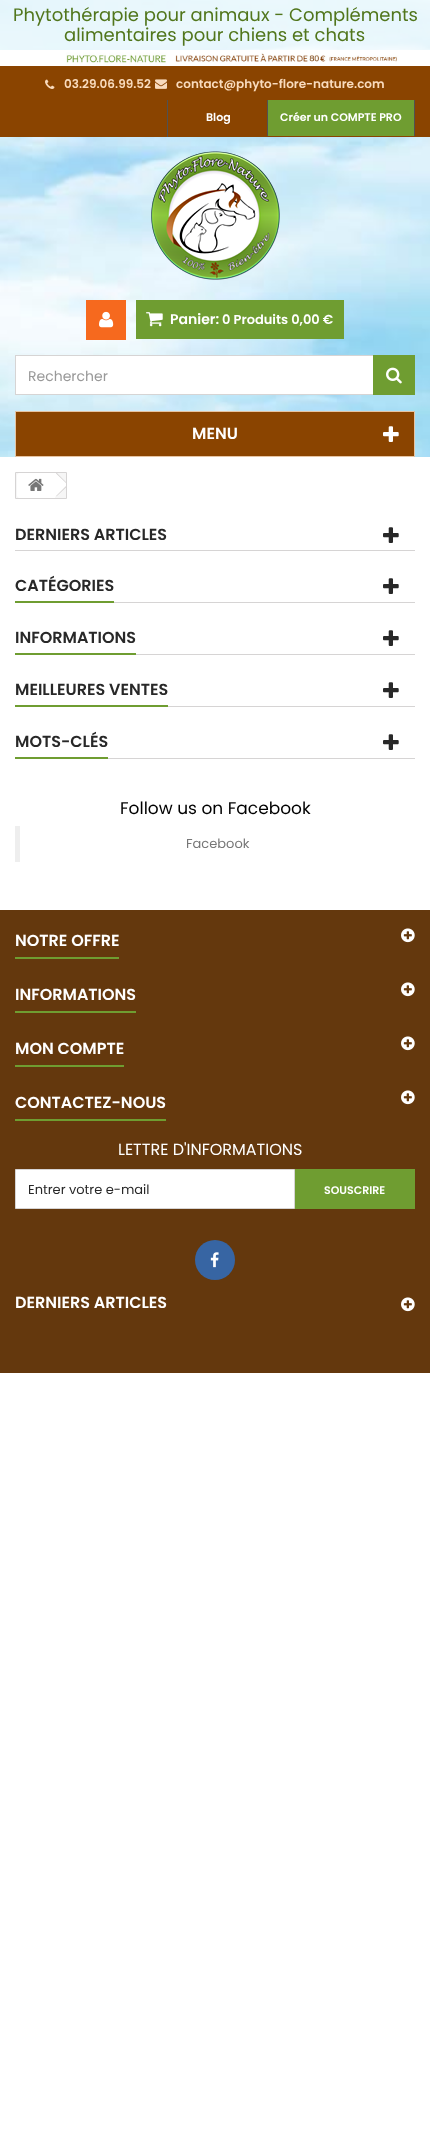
(async () => {
const canvas = document.querySelector("canvas")
canvas.width = 430
canvas.height = 2132
const c = canvas.getContext("2d")
c.miterLimit = 4
c.fontKerning = "normal"
function T(s,x,y){c.fillText(s,x,y)}
function R(x,y,w,h){c.fillRect(x,y,w,h)}
async function I(src,x,y,w,h){const img=new Image();img.src=src;await img.decode();c.drawImage(img,x,y,w,h)}
let path
c.fillStyle="#fff"
R(0,0,430,2132)
await I("1.png",0,0,430,457)
c.fillStyle="#ffffffcc"
R(0,0,430,50)
c.font="18px Poppins"
c.fillStyle="#51761c"
T("Phytothérapie pour animaux - Compléments",13,21)
T("alimentaires pour chiens et chats",64,41)
await I("2.png",0,50,430,16)
c.fillStyle="#8a4400"
R(0,66,430,71)
await I("3.png",45,79,10,10)
c.font="600 12px Poppins"
c.fillStyle="#f9dbbd"
T("03.29.06.99.52",64,88)
await I("4.png",155,79,12,10)
T("contact@phyto-flore-nature.com",176,88)
c.fillStyle="#515151"
R(167,100,1,37)
c.font="600 11px Poppins"
c.fillStyle="#fff"
T("Blog",206,121)
c.fillStyle="#515151"
R(414,100,1,36)
R(267,100,1,36)
c.fillStyle="#6f9d31"
R(268,100,146,36)
c.fillStyle="#fff"
T("Créer un COMPTE PRO",280,121)
await I("5.png",151,151,129,129)
c.fillStyle="#f6691e"
R(86,300,40,40)
await I("6.png",99,311,15,17)
c.fillStyle="#6f9d31"
R(136,300,208,39)
await I("7.png",146,312,17,15)
c.font="600 14px Poppins"
c.fillStyle="#fff"
T("Panier:",170,324)
c.font="600 13px Poppins"
T("0 Produits 0,00 €",222,324)
R(16,356,357,38)
c.strokeStyle="#d6d4d4"
c.strokeRect(15.5,355.5,399,39)
c.font="14px Poppins"
c.fillStyle="#999"
T("Rechercher",28,381)
c.fillStyle="#6f9d31"
R(373,355,42,40)
await I("8.png",386,367,16,17)
c.fillStyle="#8a4400"
c.beginPath()
c.rect(15.5,411.5,399,45)
c.fill()
c.strokeStyle="#e6c4a2"
c.stroke()
c.font="600 16px Poppins"
c.fillStyle="#fff"
T("MENU",192,439)
await I("9.png",383,426,16,16)
c.fillStyle="#f6f6f6"
c.beginPath()
c.rect(15.5,472.5,51,26)
c.fill()
c.strokeStyle="#d6d4d4"
c.stroke()
c.fillStyle="#fff"
c.beginPath()
c.roundRect(17,473,38,25,[3,0,0,3])
c.fill()
await I("10.png",28,478,16,13)
c.save()
c.beginPath()
c.rect(16,473,50,25)
c.clip()
path = new Path2D("M57.5 473.5l10 10c.5 .5 .5 2 0 2.5l-10 10c-1 1-2 1-3 0l-10-10c-.5-.5-.5-2 0-2.5l10-10c1-1 2-1 3 0z")
c.fill(path)
c.fillStyle="#d6d4d4"
path = new Path2D("M56.5 472.5l11.5 11.5l-.5 .5l-11.5-11zm11 12l.5 1l-11.5 11l-.5-.5z")
c.fill(path)
c.restore()
c.fillStyle="#d6d4d4"
R(15,550,400,1)
c.fillStyle="#282828"
T("DERNIERS ARTICLES",15,540)
await I("11.png",383,527,16,16)
c.fillStyle="#d6d4d4"
R(114,602,301,1)
c.fillStyle="#6f9d31"
R(15,601,99,2)
c.fillStyle="#282828"
T("CATÉGORIES",15,591)
await I("11.png",383,578,16,16)
c.fillStyle="#d6d4d4"
R(136,654,279,1)
c.fillStyle="#6f9d31"
R(15,653,121,2)
c.fillStyle="#282828"
T("INFORMATIONS",15,643)
await I("11.png",383,630,16,16)
c.fillStyle="#d6d4d4"
R(168,706,247,1)
c.fillStyle="#6f9d31"
R(15,705,153,2)
c.fillStyle="#282828"
T("MEILLEURES VENTES",15,695)
await I("11.png",383,682,16,16)
c.fillStyle="#d6d4d4"
R(108,758,307,1)
c.fillStyle="#6f9d31"
R(15,757,93,2)
c.fillStyle="#282828"
T("MOTS-CLÉS",15,747)
await I("11.png",383,734,16,16)
c.font="17px Poppins"
c.fillStyle="#000"
T("Follow us on Facebook",120,814)
c.fillStyle="#eee"
R(15,826,5,36)
c.font="13px Poppins"
c.fillStyle="#777"
T("Facebook",186,848)
c.fillStyle="#64380d"
R(0,910,430,463)
c.fillStyle="#6f9d31"
R(15,957,104,2)
c.font="600 16px Poppins"
c.fillStyle="#fff"
T("NOTRE OFFRE",15,946)
await I("12.png",401,928,14,15)
c.fillStyle="#6f9d31"
R(15,1011,121,2)
c.fillStyle="#fff"
T("INFORMATIONS",15,1000)
await I("12.png",401,982,14,15)
c.fillStyle="#6f9d31"
R(15,1065,109,2)
c.fillStyle="#fff"
T("MON COMPTE",15,1054)
await I("12.png",401,1036,14,15)
c.fillStyle="#6f9d31"
R(15,1119,151,2)
c.fillStyle="#fff"
T("CONTACTEZ-NOUS",15,1108)
await I("12.png",401,1090,14,15)
c.font="16px Poppins"
T("LETTRE D'INFORMATIONS",118,1155)
c.beginPath()
c.rect(15.5,1169.5,279,39)
c.fill()
c.stroke()
c.font="13px Poppins"
c.fillStyle="#282828"
T("Entrer votre e-mail",28,1194)
c.fillStyle="#6f9d31"
R(295,1169,120,40)
c.font="600 11px Poppins"
c.fillStyle="#fff"
T("SOUSCRIRE",324,1194)
c.fillStyle="#3765a3"
c.beginPath()
c.arc(215,1260,20,0,7)
c.fill()
await I("13.png",210,1252,9,16)
c.font="600 16px Poppins"
c.fillStyle="#fff"
T("DERNIERS ARTICLES",15,1308)
await I("12.png",401,1297,14,15)
})()
